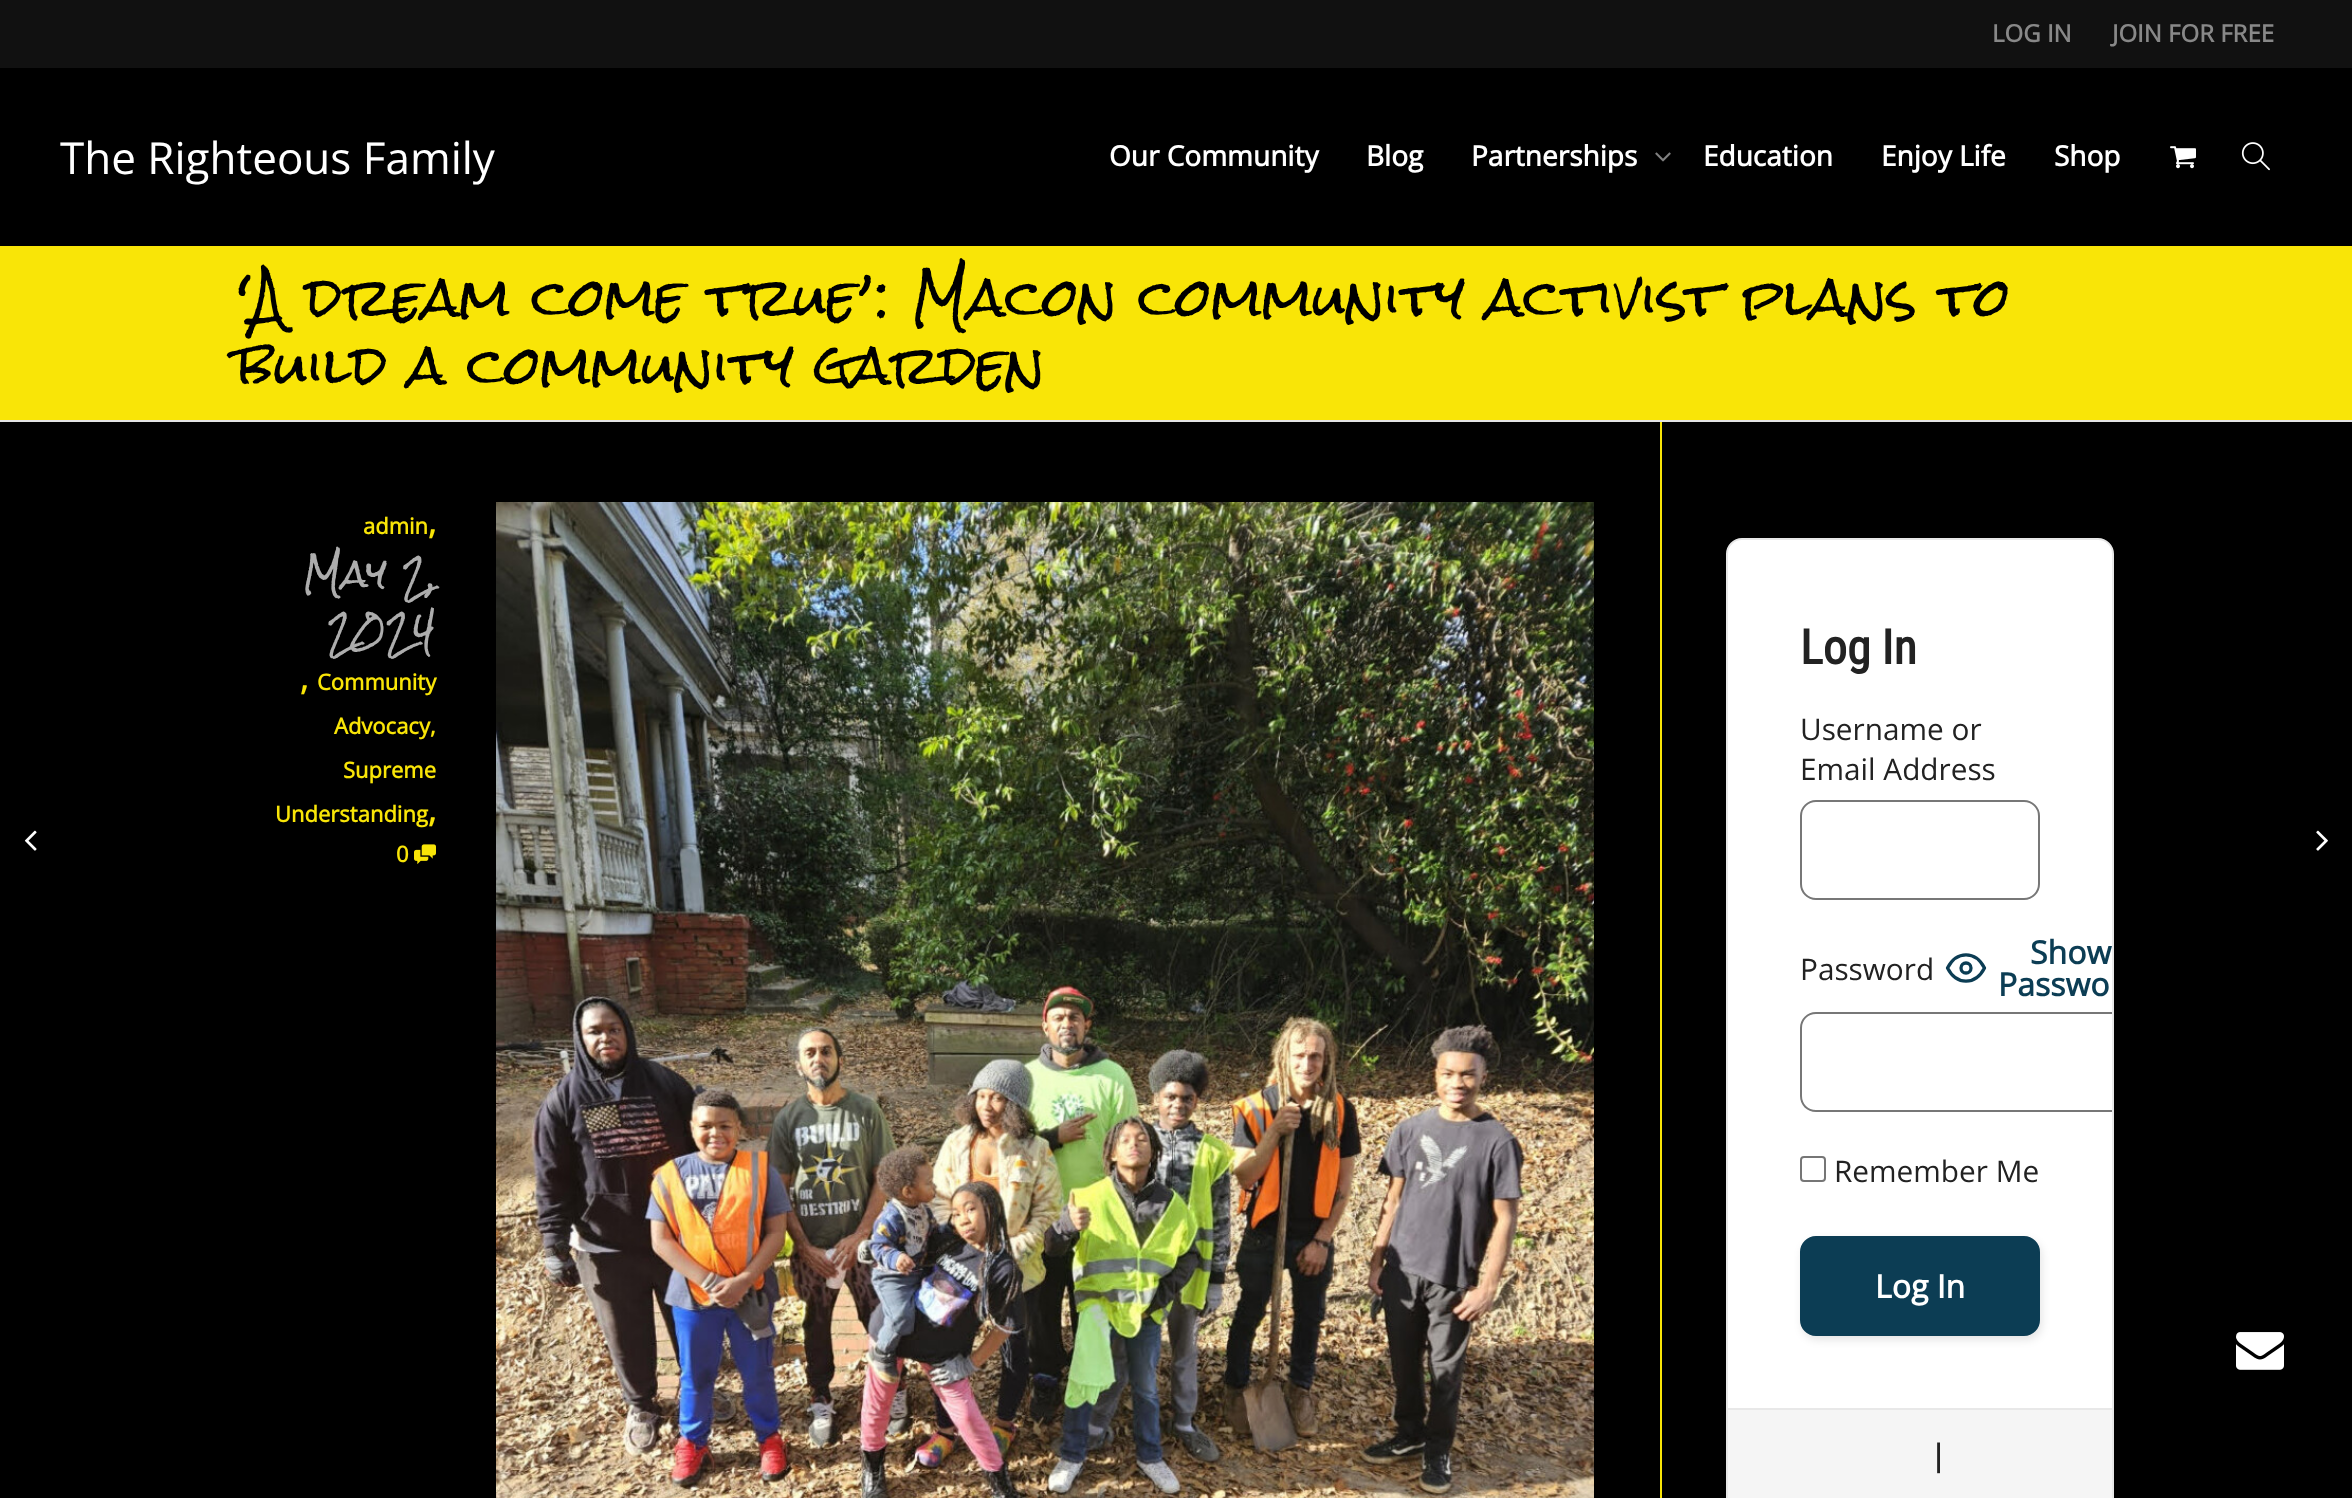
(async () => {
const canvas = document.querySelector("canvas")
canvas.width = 2352
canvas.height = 1498
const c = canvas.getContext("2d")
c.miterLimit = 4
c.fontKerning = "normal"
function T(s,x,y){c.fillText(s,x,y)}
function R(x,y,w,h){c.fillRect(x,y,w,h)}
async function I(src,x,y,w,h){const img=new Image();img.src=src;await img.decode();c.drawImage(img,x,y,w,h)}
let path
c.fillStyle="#000"
R(0,0,2352,1498)
c.fillStyle="#111"
R(0,0,2352,68)
c.font="bold 24px Open Sans"
c.fillStyle="#888"
T("LOG IN",1992,42)
T("JOIN FOR FREE",2112,42)
c.font="44px Open Sans"
c.fillStyle="#fff"
T("The Righteous Family",60,174)
c.font="bold 28px Open Sans"
T("Our Community",1109,166)
T("Blog",1366,166)
T("Partnerships",1471,166)
await I("1.png",1655,152,16,10)
T("Education",1703,166)
T("Enjoy Life",1881,166)
T("Shop",2054,166)
await I("2.png",2170,146,26,23)
await I("3.png",2241,142,29,29)
c.fillStyle="#f9e507"
R(0,246,2352,174)
c.fillStyle="#e5e5e5"
R(0,420,2352,2)
c.font="52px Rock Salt"
c.fillStyle="#000"
T("‘A dream come true’: Macon community activist plans to",236,318)
T("build a community garden",236,386)
c.fillStyle="#f9e507"
R(1660,422,2,1076)
c.font="bold 22px Open Sans"
T("admin",363,534)
c.font="bold 32px Open Sans"
T(",",428,534)
c.font="36px Rock Salt"
c.fillStyle="#adadad"
T("May 2,",303,588)
T("2024",327,644)
c.font="bold 32px Open Sans"
c.fillStyle="#f9e507"
T(",",300,690)
c.font="bold 22px Open Sans"
T("Community",317,690)
T("Advocacy,",334,734)
T("Supreme",343,778)
T("Understanding",275,822)
c.font="bold 32px Open Sans"
T(",",428,822)
c.font="bold 22px Open Sans"
T("0",396,862)
await I("4.png",414,844,22,20)
await I("5.png",496,502,1098,996)
await I("6.png",24,830,13,21)
await I("7.png",2316,830,12,21)
c.fillStyle="#fff"
c.beginPath()
c.roundRect(1727,539,386,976,15)
c.fill()
c.strokeStyle="#e8e8e8"
c.lineWidth=2
c.stroke()
c.font="bold 48px Roboto Condensed"
c.fillStyle="#222"
T("Log In",1800,664)
c.font="29.75px Open Sans"
T("Username or",1800,740)
T("Email Address",1800,780)
c.beginPath()
c.roundRect(1801,801,238,98,15)
c.strokeStyle="#777"
c.stroke()
T("Password",1800,980)
path = new Path2D("M1947.5 968c9-17.5 28-17.5 37 0c-9 17.5-28 17.5-37 0z")
c.strokeStyle="#0c3d54"
c.lineWidth=3.3
c.lineCap="round"
c.lineJoin="round"
c.stroke(path)
c.beginPath()
c.arc(1966,968,5,0,7)
c.stroke()
c.font="bold 32px Open Sans"
c.fillStyle="#0c3d54"
T("Show",2030,964)
T("Passwo",1998,996)
c.fillStyle="#777"
path = new Path2D("M1816 1012c-9 0-16 7-16 16v68c0 9 7 16 16 16h296v-2h-296c-8 0-14-6-14-14v-68c0-8 6-14 14-14h296v-2z")
c.fill(path)
c.beginPath()
c.roundRect(1801,1157,24,24,3)
c.strokeStyle="#767676"
c.lineWidth=2
c.lineJoin="miter"
c.stroke()
c.font="29.75px Open Sans"
c.fillStyle="#222"
T("Remember Me",1834,1182)
c.fillStyle="#0000001a"
c.filter="blur(4px)"
c.beginPath()
c.roundRect(1802,1240,240,100,16)
c.fill()
c.filter="none"
c.fillStyle="#0c3d54"
c.beginPath()
c.roundRect(1801,1237,238,98,15)
c.fill()
c.strokeStyle="#0c3d54"
c.stroke()
c.font="bold 32px Open Sans"
c.fillStyle="#fff"
T("Log In",1875,1298)
c.fillStyle="#f5f5f5"
R(1728,1410,384,88)
c.fillStyle="#e8e8e8"
R(1728,1408,384,2)
c.font="bold 29.75px Open Sans"
c.fillStyle="#222"
T("|",1930,1466)
await I("8.png",2236,1332,48,38)
})()
